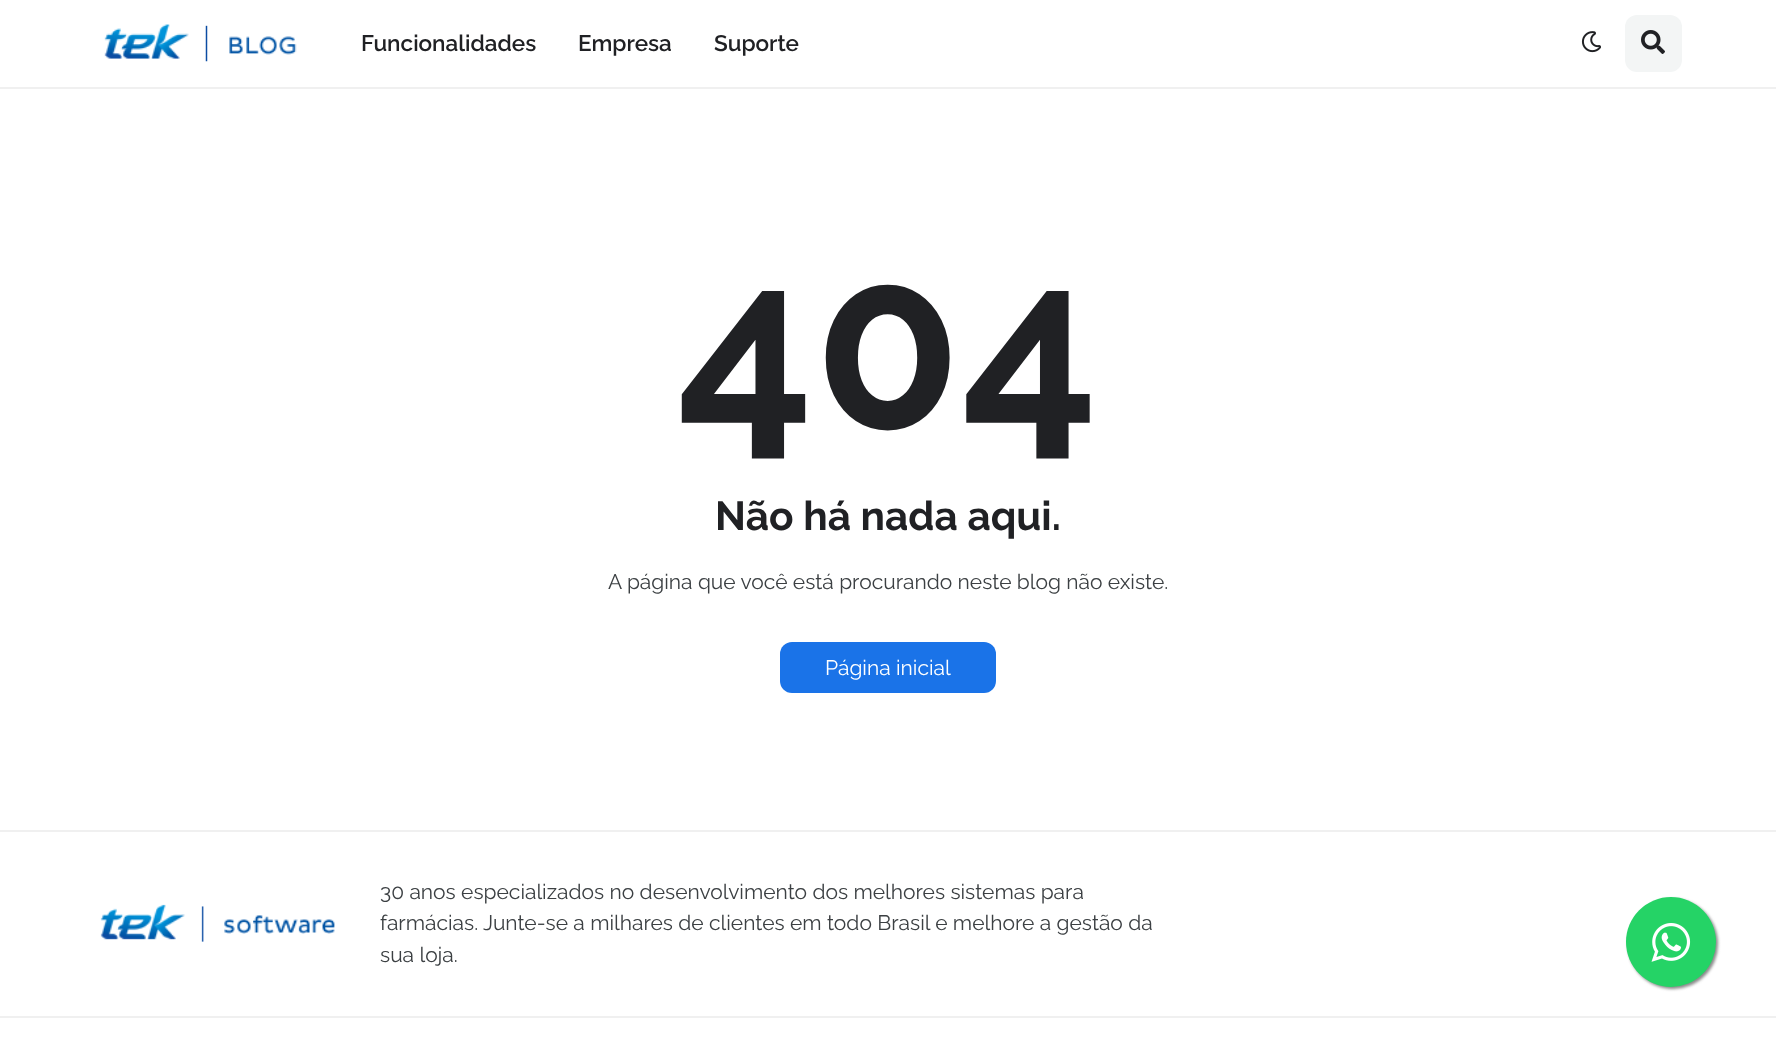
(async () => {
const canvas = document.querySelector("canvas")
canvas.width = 1776
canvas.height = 1046
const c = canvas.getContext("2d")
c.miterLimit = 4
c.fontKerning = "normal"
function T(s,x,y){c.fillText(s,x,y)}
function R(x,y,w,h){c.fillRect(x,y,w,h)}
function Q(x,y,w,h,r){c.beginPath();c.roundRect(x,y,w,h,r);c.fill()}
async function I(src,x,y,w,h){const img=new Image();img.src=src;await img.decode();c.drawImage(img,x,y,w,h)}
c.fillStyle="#fff"
R(0,0,1776,1046)
c.fillStyle="#f0f0f0"
R(0,87,1776,2)
await I("1.png",104,24,193,38)
c.font="600 22.5px Raleway"
c.fillStyle="#202124"
T("Funcionalidades",361,51)
T("Empresa",578,51)
T("Suporte",714,51)
await I("2.png",1581,31,20,22)
c.fillStyle="#f3f5f5"
Q(1625,15,57,57,12)
await I("3.png",1641,30,24,24)
c.font="bold 240px Raleway"
c.fillStyle="#202124"
T("404",677,428)
c.font="bold 40.5px Raleway"
T("Não há nada aqui.",715,530)
c.font="21px Raleway"
c.fillStyle="#3c4043"
T("A página que você está procurando neste blog não existe.",608,589)
c.fillStyle="#1a73e8"
Q(780,642,216,51,12)
c.fillStyle="#fff"
T("Página inicial",825,675)
c.fillStyle="#f0f0f0"
R(0,830,1776,2)
await I("4.png",100,904,235,38)
c.fillStyle="#3c4043"
T("30 anos especializados no desenvolvimento dos melhores sistemas para",380,899)
T("farmácias. Junte-se a milhares de clientes em todo Brasil e melhore a gestão da",380,930)
T("sua loja.",380,962)
c.fillStyle="#f0f0f0"
R(0,1016,1776,2)
c.fillStyle="#888"
c.filter="blur(1.5px)"
c.beginPath()
c.roundRect(1628,899,90,90,45)
c.fill()
c.filter="none"
c.fillStyle="#25d366"
c.beginPath()
c.arc(1671,942,45,0,7)
c.fill()
await I("5.png",1651,923,40,39)
})()
